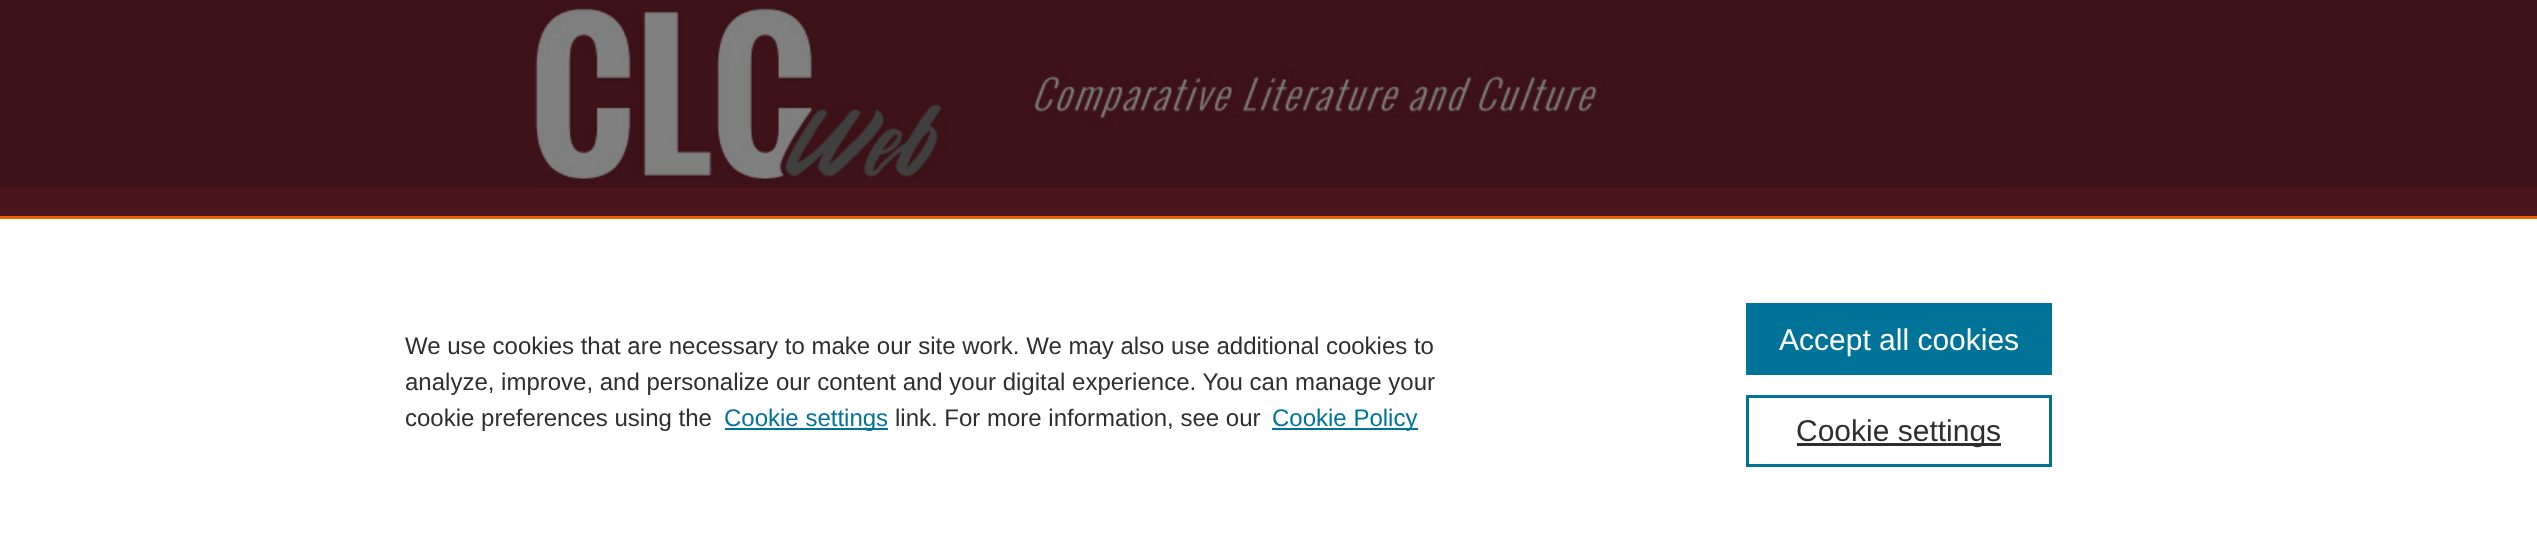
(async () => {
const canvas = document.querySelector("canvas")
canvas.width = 2537
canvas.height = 545
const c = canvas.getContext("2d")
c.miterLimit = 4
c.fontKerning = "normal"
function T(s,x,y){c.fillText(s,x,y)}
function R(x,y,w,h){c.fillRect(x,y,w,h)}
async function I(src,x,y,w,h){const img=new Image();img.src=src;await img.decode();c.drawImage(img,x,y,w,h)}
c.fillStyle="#fff"
R(0,0,2537,545)
await I("1.png",0,0,2537,216)
c.fillStyle="#3d1218"
R(534,187,1470,1)
await I("2.png",534,8,1071,176)
c.fillStyle="#eb6500"
R(0,216,2537,3)
c.font="24px Liberation Sans"
c.fillStyle="#2e2e2e"
T("We use cookies that are necessary to make our site work. We may also use additional cookies to",405,354)
T("analyze, improve, and personalize our content and your digital experience. You can manage your",405,390)
T("cookie preferences using the",405,426)
c.fillStyle="#007398"
R(725,428,163,2)
T("Cookie settings",724,426)
c.fillStyle="#2e2e2e"
T("link. For more information, see our",895,426)
c.fillStyle="#007398"
R(1272,428,146,2)
T("Cookie Policy",1272,426)
R(1746,303,306,72)
c.font="30px Liberation Sans"
c.fillStyle="#fff"
T("Accept all cookies",1779,350)
c.strokeStyle="#007398"
c.lineWidth=3
c.strokeRect(1747.5,396.5,303,69)
c.fillStyle="#2e2e2e"
R(1797,443,204,3)
T("Cookie settings",1796,441)
})()
